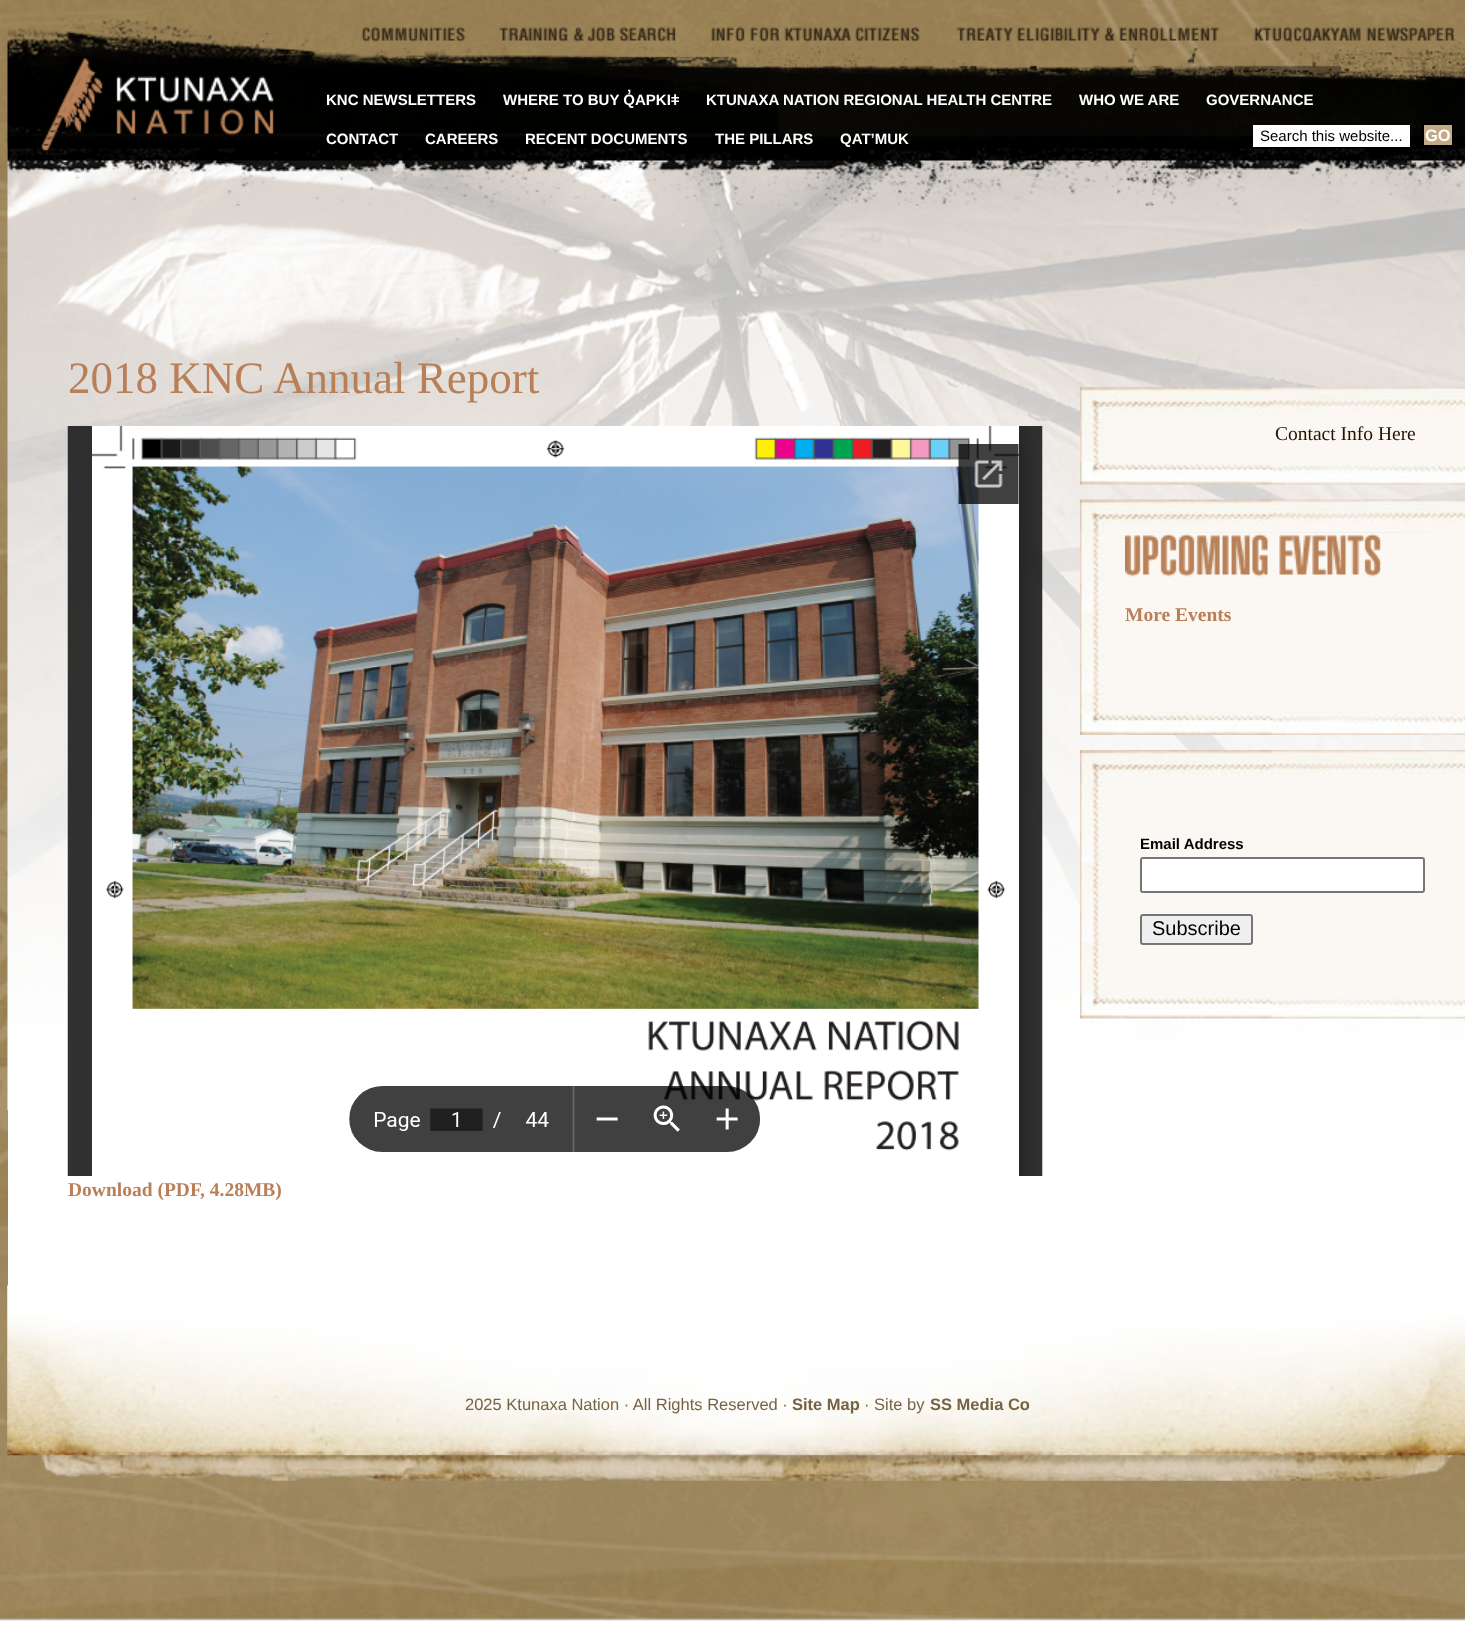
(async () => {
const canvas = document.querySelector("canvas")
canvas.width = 1465
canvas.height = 1625
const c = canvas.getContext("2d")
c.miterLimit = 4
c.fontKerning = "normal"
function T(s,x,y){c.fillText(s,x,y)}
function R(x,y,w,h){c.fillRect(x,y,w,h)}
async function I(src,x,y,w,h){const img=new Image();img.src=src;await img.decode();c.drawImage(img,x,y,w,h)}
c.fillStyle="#fff"
R(0,0,1465,1625)
await I("1.png",0,0,1465,1621)
await I("3.png",7,147,1458,963)
await I("2.png",7,17,1458,189)
c.font="bold 15px Liberation Sans"
T("KNC NEWSLETTERS",326,105)
T("WHERE TO BUY Q̓APKIǂ",503,105)
T("KTUNAXA NATION REGIONAL HEALTH CENTRE",706,105)
T("WHO WE ARE",1079,105)
T("GOVERNANCE",1206,105)
T("CONTACT",326,144)
T("CAREERS",425,144)
T("RECENT DOCUMENTS",525,144)
T("THE PILLARS",715,144)
T("QAT’MUK",840,144)
R(1253,125,157,22)
c.font="15px Liberation Sans"
c.fillStyle="#000"
T("Search this website...",1260,141)
c.fillStyle="#c4a985"
c.beginPath()
c.rect(1423,124,30,22)
c.fill()
c.strokeStyle="#000"
c.lineWidth=2
c.stroke()
c.font="bold 16.5px Liberation Sans"
c.fillStyle="#fff"
T("GO",1425,141)
R(8,1110,1457,176)
c.font="45px Liberation Serif"
c.fillStyle="#b87f58"
T("2018 KNC Annual Report",68,393)
await I("4.png",67,426,976,750)
c.font="bold 19.5px Liberation Serif"
T("Download (PDF, 4.28MB)",68,1196)
await I("5.png",1080,387,385,33)
await I("6.png",1080,420,385,42)
c.font="19.5px Liberation Serif"
c.fillStyle="#261300"
T("Contact Info Here",1275,440)
await I("7.png",1080,462,385,23)
await I("8.png",1080,499,385,34)
await I("9.png",1080,532,385,181)
await I("10.png",1125,533,256,44)
c.font="bold 19.5px Liberation Serif"
c.fillStyle="#b87f58"
T("More Events",1125,621)
await I("11.png",1080,712,385,23)
await I("5.png",1080,750,385,33)
await I("12.png",1080,783,385,213)
c.font="bold 15px Liberation Sans"
c.fillStyle="#000"
T("Email Address",1140,849)
c.fillStyle="#fff"
c.beginPath()
c.roundRect(1141,858,283,34,2)
c.fill()
c.strokeStyle="#767676"
c.stroke()
c.fillStyle="#efefef"
c.beginPath()
c.roundRect(1141,915,111,29,2)
c.fill()
c.stroke()
c.font="20px Liberation Sans"
c.fillStyle="#000"
T("Subscribe",1152,935)
await I("13.png",1080,996,385,23)
await I("14.png",7,1285,1458,196)
await I("15.png",7,1285,1458,196)
c.font="16.5px Liberation Sans"
c.fillStyle="#786241"
T("2025 Ktunaxa Nation · All Rights Reserved ·",465,1410)
c.font="bold 16.5px Liberation Sans"
T("Site Map",792,1410)
c.font="16.5px Liberation Sans"
T("· Site by",864,1410)
c.font="bold 16.5px Liberation Sans"
T("SS Media Co",930,1410)
})()
